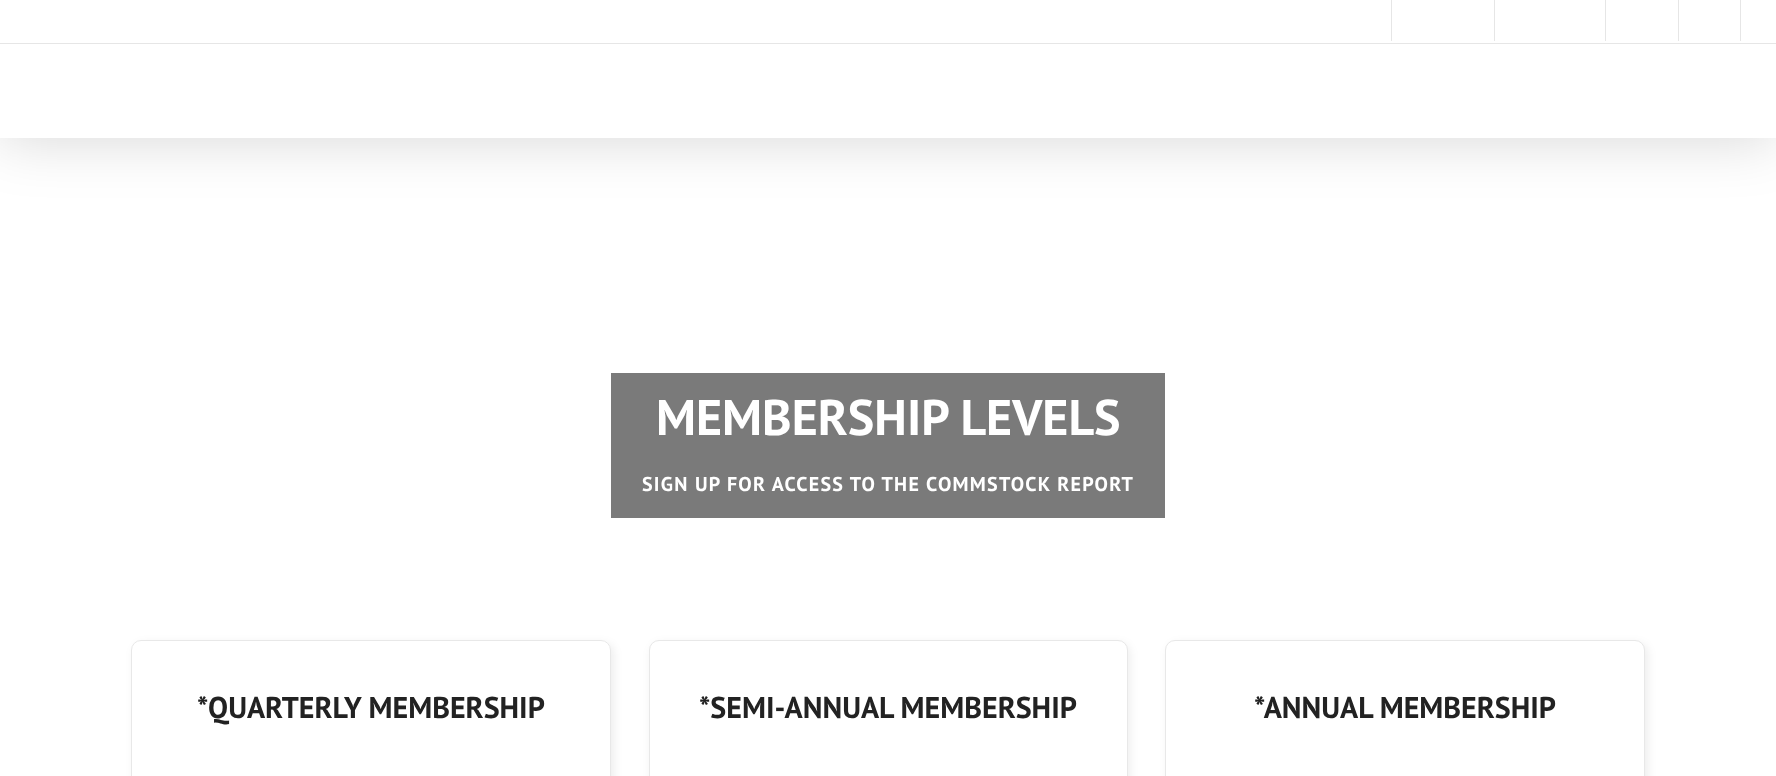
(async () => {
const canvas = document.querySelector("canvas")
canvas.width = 1776
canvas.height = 776
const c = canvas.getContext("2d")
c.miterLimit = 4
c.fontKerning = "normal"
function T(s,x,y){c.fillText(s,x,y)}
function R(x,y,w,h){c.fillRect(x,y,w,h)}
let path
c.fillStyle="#fff"
R(0,0,1776,776)
c.save()
path = new Path2D("M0 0h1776v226h-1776zm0 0h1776v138h-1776z")
c.clip(path,"evenodd")
c.fillStyle="#00000026"
c.filter="blur(28px)"
c.beginPath()
c.rect(0,4,1776,137)
c.fill()
c.filter="none"
c.restore()
c.fillStyle="#e6e6e6"
R(0,43,1776,1)
R(1391,0,1,41)
R(1494,0,1,41)
R(1605,0,1,41)
R(1740,0,1,41)
R(1678,0,1,41)
c.fillStyle="#7a7a7a"
R(611,373,554,145)
c.font="bold 50px PT Sans"
c.fillStyle="#fff"
T("MEMBERSHIP LEVELS",656,435)
c.letterSpacing="1.25px"
c.font="bold 20px PT Sans"
T("SIGN UP FOR ACCESS TO THE COMMSTOCK REPORT",642,491)
c.save()
path = new Path2D("M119 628h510v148h-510zm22 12h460c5.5 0 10 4.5 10 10v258c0 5.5-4.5 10-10 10h-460c-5.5 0-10-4.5-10-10v-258c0-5.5 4.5-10 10-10z")
c.clip(path,"evenodd")
c.fillStyle="#00000012"
c.filter="blur(4.5px)"
c.beginPath()
c.roundRect(134,643,480,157,10)
c.fill()
c.filter="none"
c.restore()
c.beginPath()
c.roundRect(131.5,640.5,479,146,9.5)
c.strokeStyle="#e8e8e8"
c.stroke()
c.letterSpacing="0px"
c.font="bold 30px PT Sans"
c.fillStyle="#222"
T("*QUARTERLY MEMBERSHIP",197,718)
c.fillStyle="#00000012"
c.filter="blur(4.5px)"
c.beginPath()
c.roundRect(651,643,479,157,10)
c.fill()
c.filter="none"
c.fillStyle="#fff"
c.beginPath()
c.roundRect(649.5,640.5,478,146,9.5)
c.fill()
c.stroke()
c.fillStyle="#222"
T("*SEMI-ANNUAL MEMBERSHIP",699,718)
c.fillStyle="#00000012"
c.filter="blur(4.5px)"
c.beginPath()
c.roundRect(1168,643,480,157,10)
c.fill()
c.filter="none"
c.fillStyle="#fff"
c.beginPath()
c.roundRect(1165.5,640.5,479,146,9.5)
c.fill()
c.stroke()
c.fillStyle="#222"
T("*ANNUAL MEMBERSHIP",1254,718)
})()
